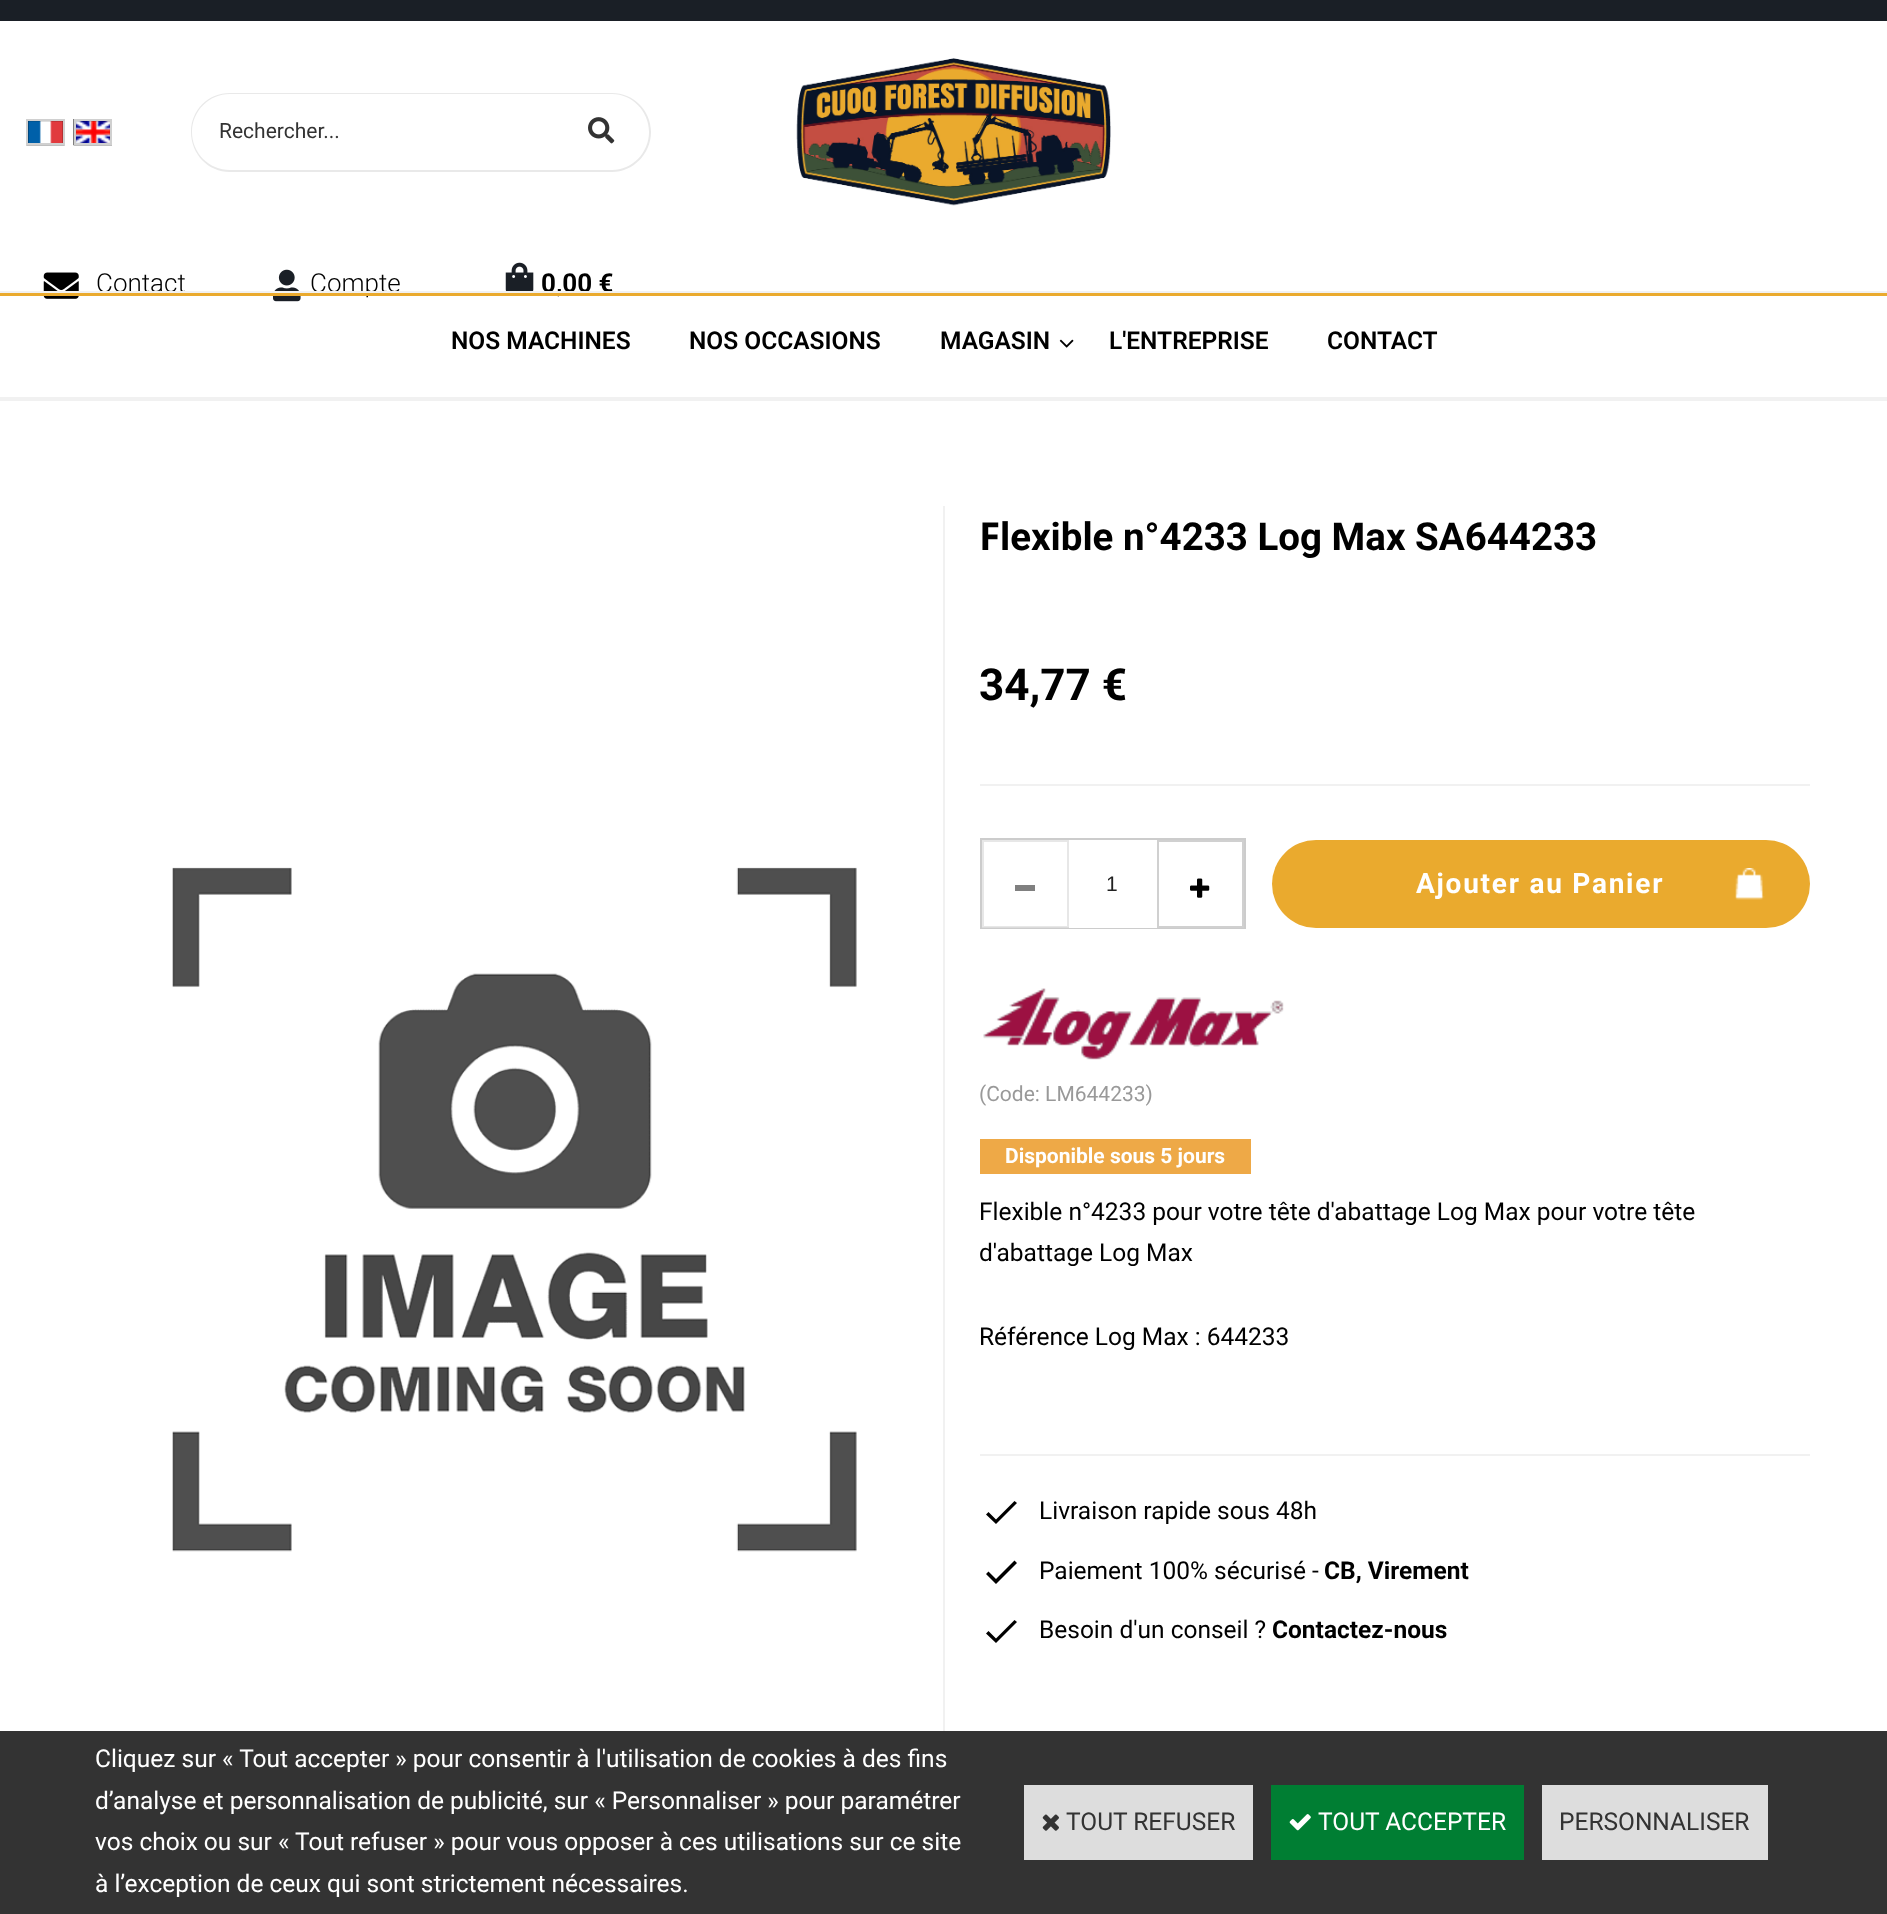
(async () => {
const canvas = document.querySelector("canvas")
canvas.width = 1887
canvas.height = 1914
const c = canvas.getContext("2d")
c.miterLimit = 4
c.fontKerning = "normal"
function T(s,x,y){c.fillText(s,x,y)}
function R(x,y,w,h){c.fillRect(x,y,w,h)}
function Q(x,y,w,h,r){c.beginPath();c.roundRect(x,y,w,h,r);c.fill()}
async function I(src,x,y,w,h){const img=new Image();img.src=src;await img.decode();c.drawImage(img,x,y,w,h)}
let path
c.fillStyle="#fff"
R(0,0,1887,1914)
c.fillStyle="#f1f1f1"
R(0,397,1887,4)
c.fillStyle="#1a1f26"
R(0,0,1887,21)
await I("1.png",26,121,39,25)
c.strokeStyle="#d0d0d0"
c.lineWidth=2
c.strokeRect(27,120,37,24)
await I("2.png",73,119,39,27)
c.strokeRect(75,120,36,24)
c.fillStyle="#e9e9e9"
path = new Path2D("M230 93h358v79h-358c-22 0-39-18-39-40c0-22 17-39 39-39zm0 1h358v76h-358c-21 0-38-17-38-38c0-21 17-38 38-38z")
c.fill(path,"evenodd")
c.font="21px Roboto"
c.fillStyle="#333"
T("Rechercher...",219,138)
c.fillStyle="#e9e9e9"
path = new Path2D("M588 93h24c21 0 39 17 39 39c0 22-18 40-39 40h-24zm0 1h24c20 0 37 17 37 38c0 21-17 38-37 38h-24z")
c.fill(path,"evenodd")
await I("3.png",588,117,27,27)
await I("4.png",796,58,315,148)
await I("5.png",43,272,36,27)
c.font="300 26px Roboto"
c.fillStyle="#000"
T("Contact",96,292)
await I("6.png",273,269,28,33)
T("Compte",310,292)
await I("7.png",505,262,29,29)
c.font="bold 26px Roboto"
T("0,00 €",541,292)
c.fillStyle="#eaaa2e"
R(0,293,1887,3)
c.fillStyle="#f1f1f1"
R(0,291,1887,2)
c.font="600 24.5px Roboto"
c.fillStyle="#000"
T("NOS MACHINES",451,349)
T("NOS OCCASIONS",689,349)
T("MAGASIN",940,349)
await I("8.png",1059,339,15,9)
T("L'ENTREPRISE",1109,349)
T("CONTACT",1327,349)
c.fillStyle="#f1f1f1"
R(943,506,2,1225)
await I("9.png",172,867,685,685)
c.font="bold 38.5px Noto Sans"
c.fillStyle="#000"
T("F",979,550)
c.font="bold 38.5px Roboto"
T("lexible n°4233 Log Max SA644233",1000,550)
c.font="bold 44px Roboto"
T("34,77 €",979,700)
c.fillStyle="#f1f1f1"
R(980,784,830,2)
c.strokeStyle="#ccc"
c.strokeRect(981,839,264,89)
c.fillStyle="#ffffff80"
R(982,927,87,1)
c.strokeStyle="#d0d0d080"
c.strokeRect(983,841,85,86)
c.fillStyle="#808080"
R(1015,885,20,6)
c.fillStyle="#fff"
R(1069,927,88,1)
c.font="21px Liberation Sans"
c.fillStyle="#212121"
T("1",1106,891)
c.strokeStyle="#d0d0d0"
c.strokeRect(1158,841,85,86)
await I("10.png",1190,878,20,20)
c.fillStyle="#eaaa2e"
Q(1272,840,538,88,44)
await I("11.png",1735,868,30,32)
c.letterSpacing="1.75px"
c.font="bold 28px Roboto"
c.fillStyle="#fff"
T("Ajouter au Panier",1416,893)
await I("12.png",983,988,301,72)
c.letterSpacing="0px"
c.font="21px Roboto"
c.fillStyle="#999"
T("(Code: LM644233)",979,1101)
c.fillStyle="#eea947"
R(980,1139,271,35)
c.font="bold 21px Roboto"
c.fillStyle="#fff"
T("Disponible sous 5 jours",1005,1163)
c.font="24.5px Roboto"
c.fillStyle="#000"
T("Flexible n°4233 pour votre tête d'abattage Log Max pour votre tête",979,1220)
T("d'abattage Log Max",979,1261)
T("Référence Log Max : 644233",979,1345)
c.fillStyle="#f1f1f1"
R(980,1454,830,2)
c.fillStyle="#000"
path = new Path2D("M996 1519.5l-7.5-7.5l-2.5 2.5l10 9.5l21-21l-2.5-2z")
c.fill(path)
T("Livraison rapide sous 48h",1039,1519)
path = new Path2D("M996 1579l-7.5-7.5l-2.5 2.5l10 10l21-21l-2.5-2.5z")
c.fill(path)
T("Paiement 100% sécurisé -",1039,1579)
c.font="bold 24.5px Roboto"
T("CB, Virement",1324,1579)
path = new Path2D("M996 1638.5l-7.5-7.5l-2.5 2.5l10 9.5l21-21l-2.5-2z")
c.fill(path)
c.font="24.5px Roboto"
T("Besoin d'un conseil ?",1039,1638)
c.font="bold 24.5px Roboto"
T("Contactez-nous",1272,1638)
c.fillStyle="#333"
R(0,1731,1887,183)
c.font="24.5px Roboto"
c.fillStyle="#fff"
T("Cliquez sur « Tout accepter » pour consentir à l'utilisation de cookies à des fins",95,1767)
T("d’analyse et personnalisation de publicité, sur « Personnaliser » pour paramétrer",95,1809)
T("vos choix ou sur « Tout refuser » pour vous opposer à ces utilisations sur ce site",95,1850)
T("à l’exception de ceux qui sont strictement nécessaires.",95,1892)
c.fillStyle="#ddd"
R(1024,1785,229,75)
await I("13.png",1042,1814,17,17)
c.fillStyle="#333"
T("TOUT REFUSER",1066,1830)
c.fillStyle="#007e33"
R(1271,1785,253,75)
await I("14.png",1289,1814,22,17)
c.fillStyle="#fff"
T("TOUT ACCEPTER",1318,1830)
c.fillStyle="#ddd"
R(1542,1785,226,75)
c.fillStyle="#333"
T("PERSONNALISER",1559,1830)
})()
